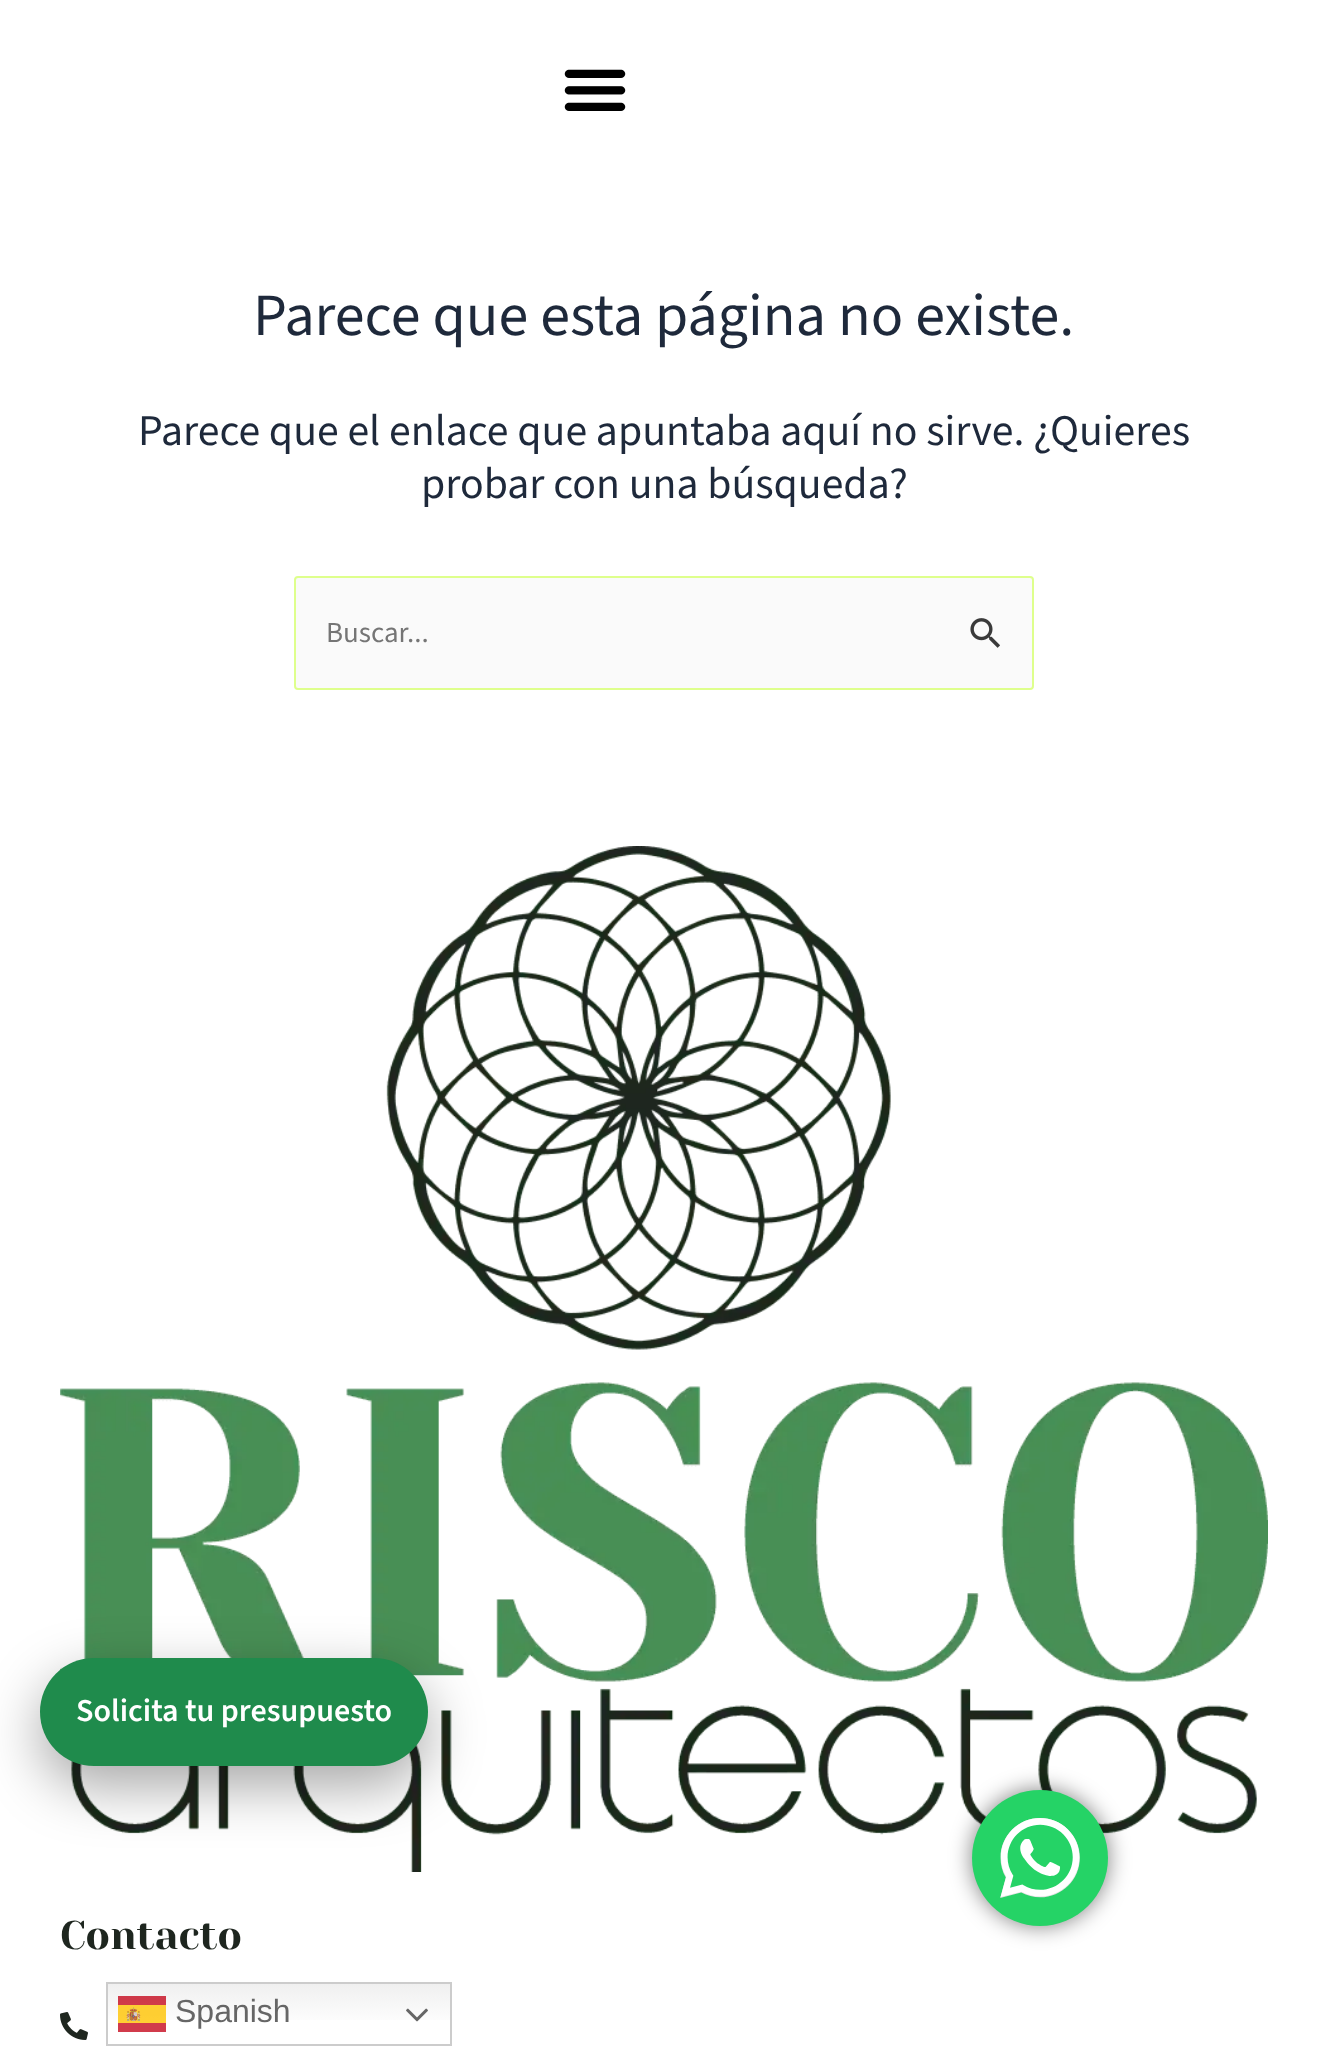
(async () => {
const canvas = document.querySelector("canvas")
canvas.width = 1327
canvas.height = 2046
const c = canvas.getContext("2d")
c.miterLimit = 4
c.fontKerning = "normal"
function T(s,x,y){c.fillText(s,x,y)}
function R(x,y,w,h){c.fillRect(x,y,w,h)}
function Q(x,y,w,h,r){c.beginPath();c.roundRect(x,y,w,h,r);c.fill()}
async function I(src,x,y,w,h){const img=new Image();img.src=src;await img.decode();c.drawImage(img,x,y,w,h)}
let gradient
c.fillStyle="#fff"
R(0,0,1327,2046)
await I("1.png",564,69,62,42)
c.font="60px 'Source Sans 3'"
c.fillStyle="#1e293b"
T("Parece que esta página no existe.",253,335)
c.font="43.75px 'Source Sans 3'"
T("Parece que el enlace que apuntaba aquí no sirve. ¿Quieres",138,445)
T("probar con una búsqueda?",421,498)
c.fillStyle="#fafafa"
c.beginPath()
c.roundRect(295,577,738,112,3)
c.fill()
c.strokeStyle="#deff8c"
c.lineWidth=2
c.stroke()
c.font="29px 'Source Sans 3'"
c.fillStyle="#757575"
T("Buscar...",326,642)
await I("2.png",970,618,30,30)
await I("3.png",60,846,1208,1026)
c.font="40px Yeseva One"
c.fillStyle="#1e261f"
T("Contacto",60,1949)
await I("4.png",60,2012,28,28)
c.fillStyle="#00000059"
c.filter="blur(28px)"
c.beginPath()
c.roundRect(40,1678,388,108,54)
c.fill()
c.filter="none"
c.fillStyle="#1f8b4c"
Q(40,1658,388,108,54)
c.font="600 32px 'Source Sans 3'"
c.fillStyle="#fff"
T("Solicita tu presupuesto",76,1721)
c.fillStyle="#00000080"
c.filter="blur(11px)"
c.beginPath()
c.roundRect(972,1790,136,136,68)
c.fill()
c.filter="none"
c.fillStyle="#25d366"
c.beginPath()
c.arc(1040,1858,68,0,7)
c.fill()
await I("5.png",1000,1818,80,80)
gradient = c.createLinearGradient(279,1982,279,2046)
gradient.addColorStop(0,"#efefef")
gradient.addColorStop(.7,"#fff")
c.fillStyle = gradient
R(108,1984,342,36)
c.strokeStyle="#ccc"
c.strokeRect(107,1983,344,62)
await I("6.png",118,1996,48,36)
c.font="32px Liberation Sans"
c.fillStyle="#666"
T("Spanish",175,2022)
await I("7.png",406,2008,22,14)
})()
